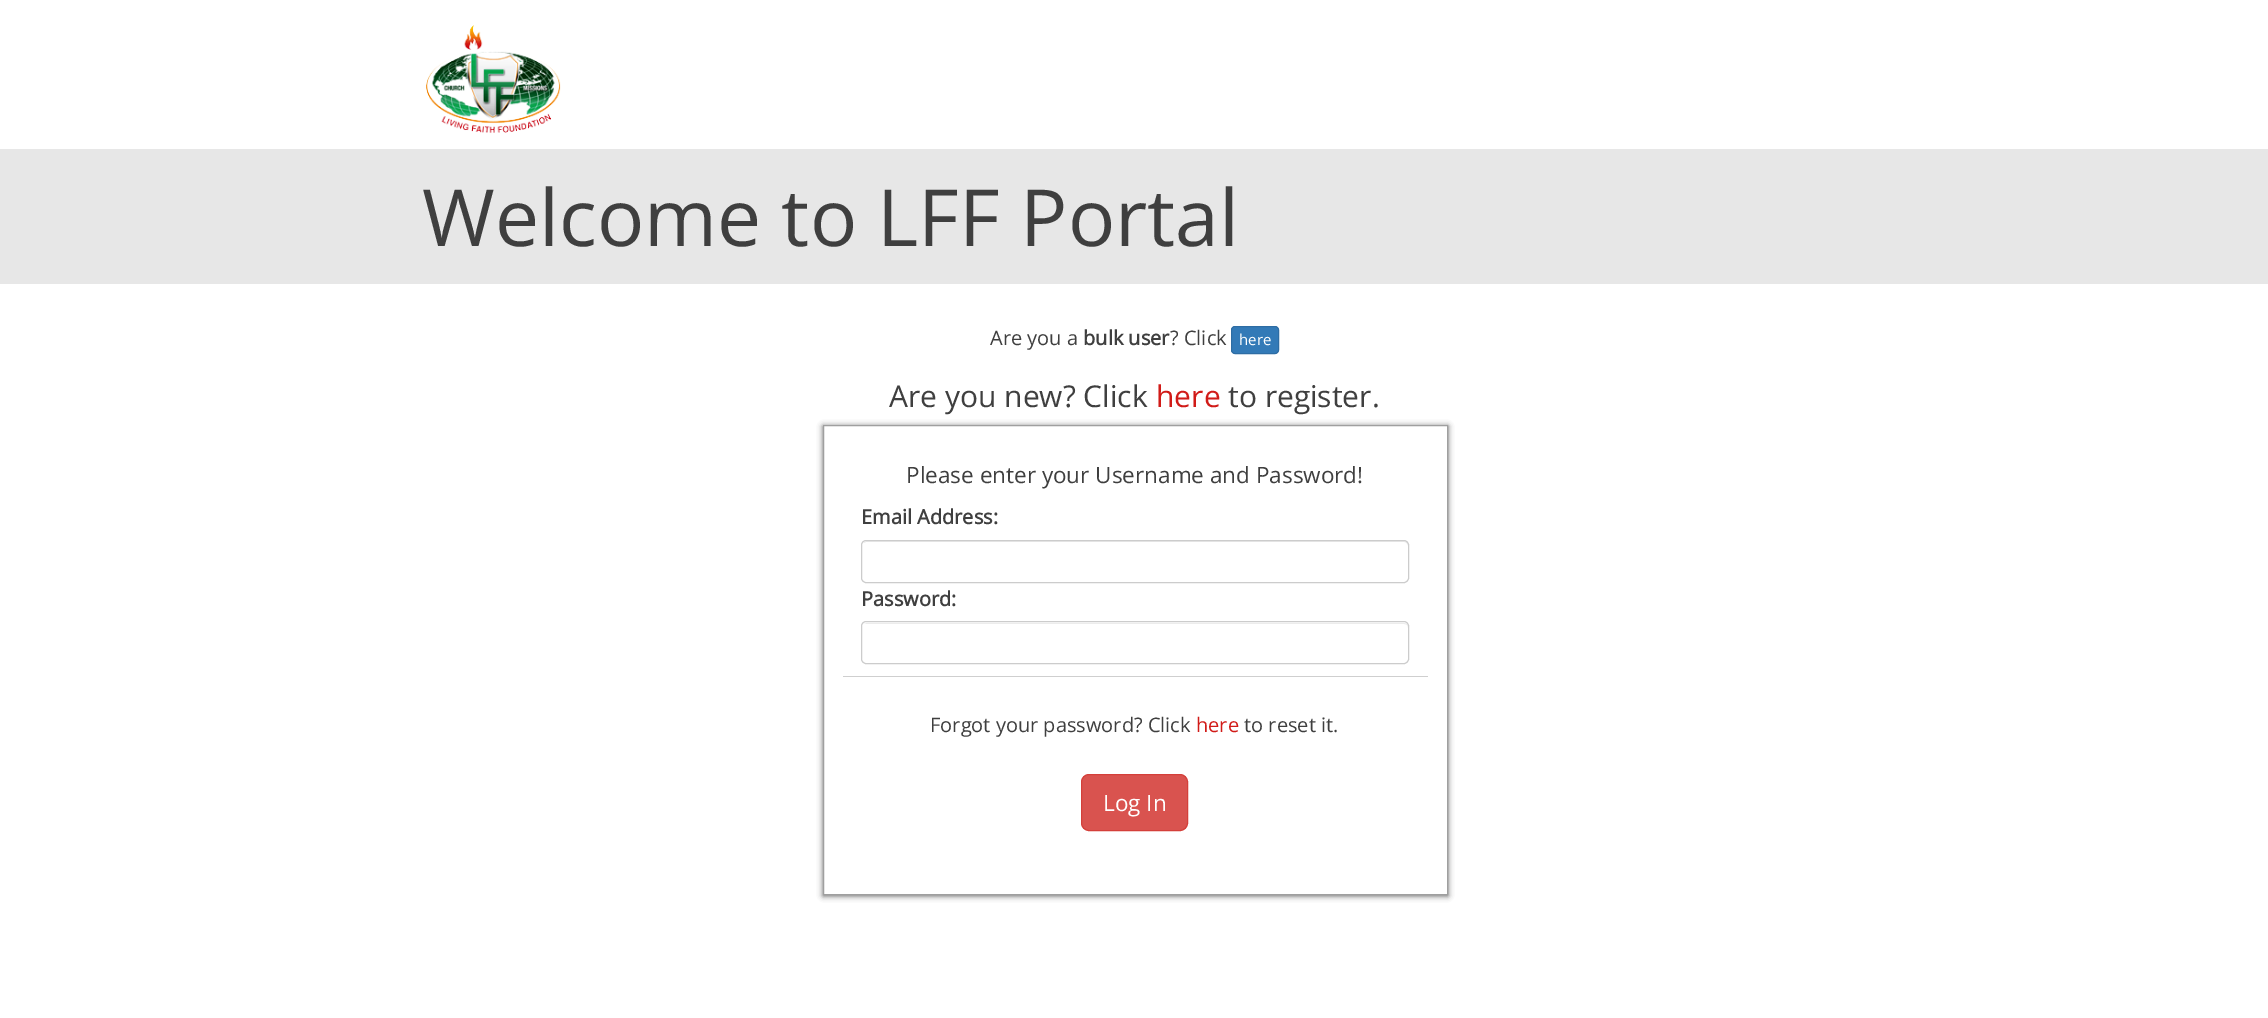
%!PS-Adobe-3.0
%%BoundingBox: 0 0 2268 1018
%%LanguageLevel: 3
%%Pages: 1
%%EndComments
%%BeginProlog
/setalpha { dup .setfillconstantalpha .setstrokeconstantalpha } def
/rrect { 5 dict begin { /r /h /w /y /x } { exch def } forall
  x r add y moveto x w add y 2 copy h add r arct x w add y h add x 1 index r arct
  x y h add x y r arct x y 2 copy exch w add exch r arct closepath end } def
/softshadow { 12 dict begin { /a /b /q /h /w /y /x } { exch def } forall gsave /was 0 def
  9 -2 -9 { dup b mul 4 div /e exch def 1 sub .425 mul 2.718 exch exp 1 add a .99 .min exch div /now exch def
    1 1 now sub 1 was sub div sub setalpha /was now def
    w h .min e 2 mul add 0 gt { x e sub y e sub w e 2 mul add h e 2 mul add
      q e add b .6 mul add w h .min 2 div e add .min 0 .max rrect fill } if } for grestore end } def
/drawimage { 5 dict begin { /h /w /y /x /name } { exch def } forall
  gsave x y translate w h scale
  w h 8 [w 0 0 h 0 0] name (r) file false 3 colorimage grestore end } def
%%EndProlog
%%BeginSetup
<< /PageSize [2268 1018] /PageUsesTransparency true >> setpagedevice
%%EndSetup
%%Page: 1 1
0 .pushpdf14devicefilter
0 1018 translate 1 -1 scale
4 setmiterlimit
1 setgray
0 0 2268 1018 rectfill
(images/1.raw) 426 25 135 108 drawimage
0.906 setgray
0 149 2268 135 rectfill
0.2 0.478 0.718 setrgbcolor
1231.5 326.5 47 27 3.5 rrect gsave fill grestore
0.18 0.427 0.643 setrgbcolor
stroke
0.373 setgray
823 426 625 470 0 3 1 softshadow
1 setgray
newpath 823.5 425.5 moveto 1447.5 425.5 lineto 1447.5 894.5 lineto 823.5 894.5 lineto closepath gsave fill grestore
0.624 setgray
stroke
0.812 setgray
843 676 585 1 rectfill
0.925 setgray
newpath 866 542 moveto 1404 542 lineto 1406 542 1408 544 1408 546 curveto 1408 545 lineto 1408 543 1406 541 1404 541 curveto 867 541 lineto 866 541 864 542 864 543 curveto closepath fill
0.8 setgray
861.5 540.5 547 42 4.5 rrect stroke
0.925 setgray
newpath 866 624 moveto 1404 624 lineto 1406 624 1408 625 1408 628 curveto 1408 627 lineto 1408 625 1406 623 1404 623 curveto 867 623 lineto 866 623 865 624 864 624 curveto closepath fill
0.8 setgray
861.5 621.5 547 42 4.5 rrect stroke
0.851 0.325 0.31 setrgbcolor
1081.5 774.5 106 56 7.5 rrect gsave fill grestore
0.831 0.247 0.227 setrgbcolor
stroke
/OpenSans-Regular [78.75 0 0 -78.75 0 0] selectfont
0.247 setgray
422 246 moveto (Welcome to LFF Portal) show
/OpenSans-Regular [20 0 0 -20 0 0] selectfont
990 345 moveto (Are you a) show
/OpenSans-Bold [20 0 0 -20 0 0] selectfont
1083 345 moveto (bulk user) show
/OpenSans-Regular [20 0 0 -20 0 0] selectfont
1170 345 moveto (? Click) show
/OpenSans-Regular [15 0 0 -15 0 0] selectfont
1 setgray
1239 345 moveto (here) show
/OpenSans-Regular [30 0 0 -30 0 0] selectfont
0.247 setgray
889 407 moveto (Are you new? Click) show
0.82 0.106 0.094 setrgbcolor
1156 407 moveto (here) show
0.247 setgray
1228 407 moveto (to register.) show
/OpenSans-Regular [22.5 0 0 -22.5 0 0] selectfont
906 483 moveto (Please enter your Username and Password!) show
/OpenSans-Bold [20 0 0 -20 0 0] selectfont
861 524 moveto (Email Address:) show
861 606 moveto (Password:) show
/OpenSans-Regular [20 0 0 -20 0 0] selectfont
930 732 moveto (Forgot your password? Click) show
0.82 0.106 0.094 setrgbcolor
1196 732 moveto (here) show
0.247 setgray
1244 732 moveto (to reset it.) show
/OpenSans-Regular [22.5 0 0 -22.5 0 0] selectfont
1 setgray
1103 811 moveto (Log In) show
.poppdf14devicefilter showpage
%%EOF
